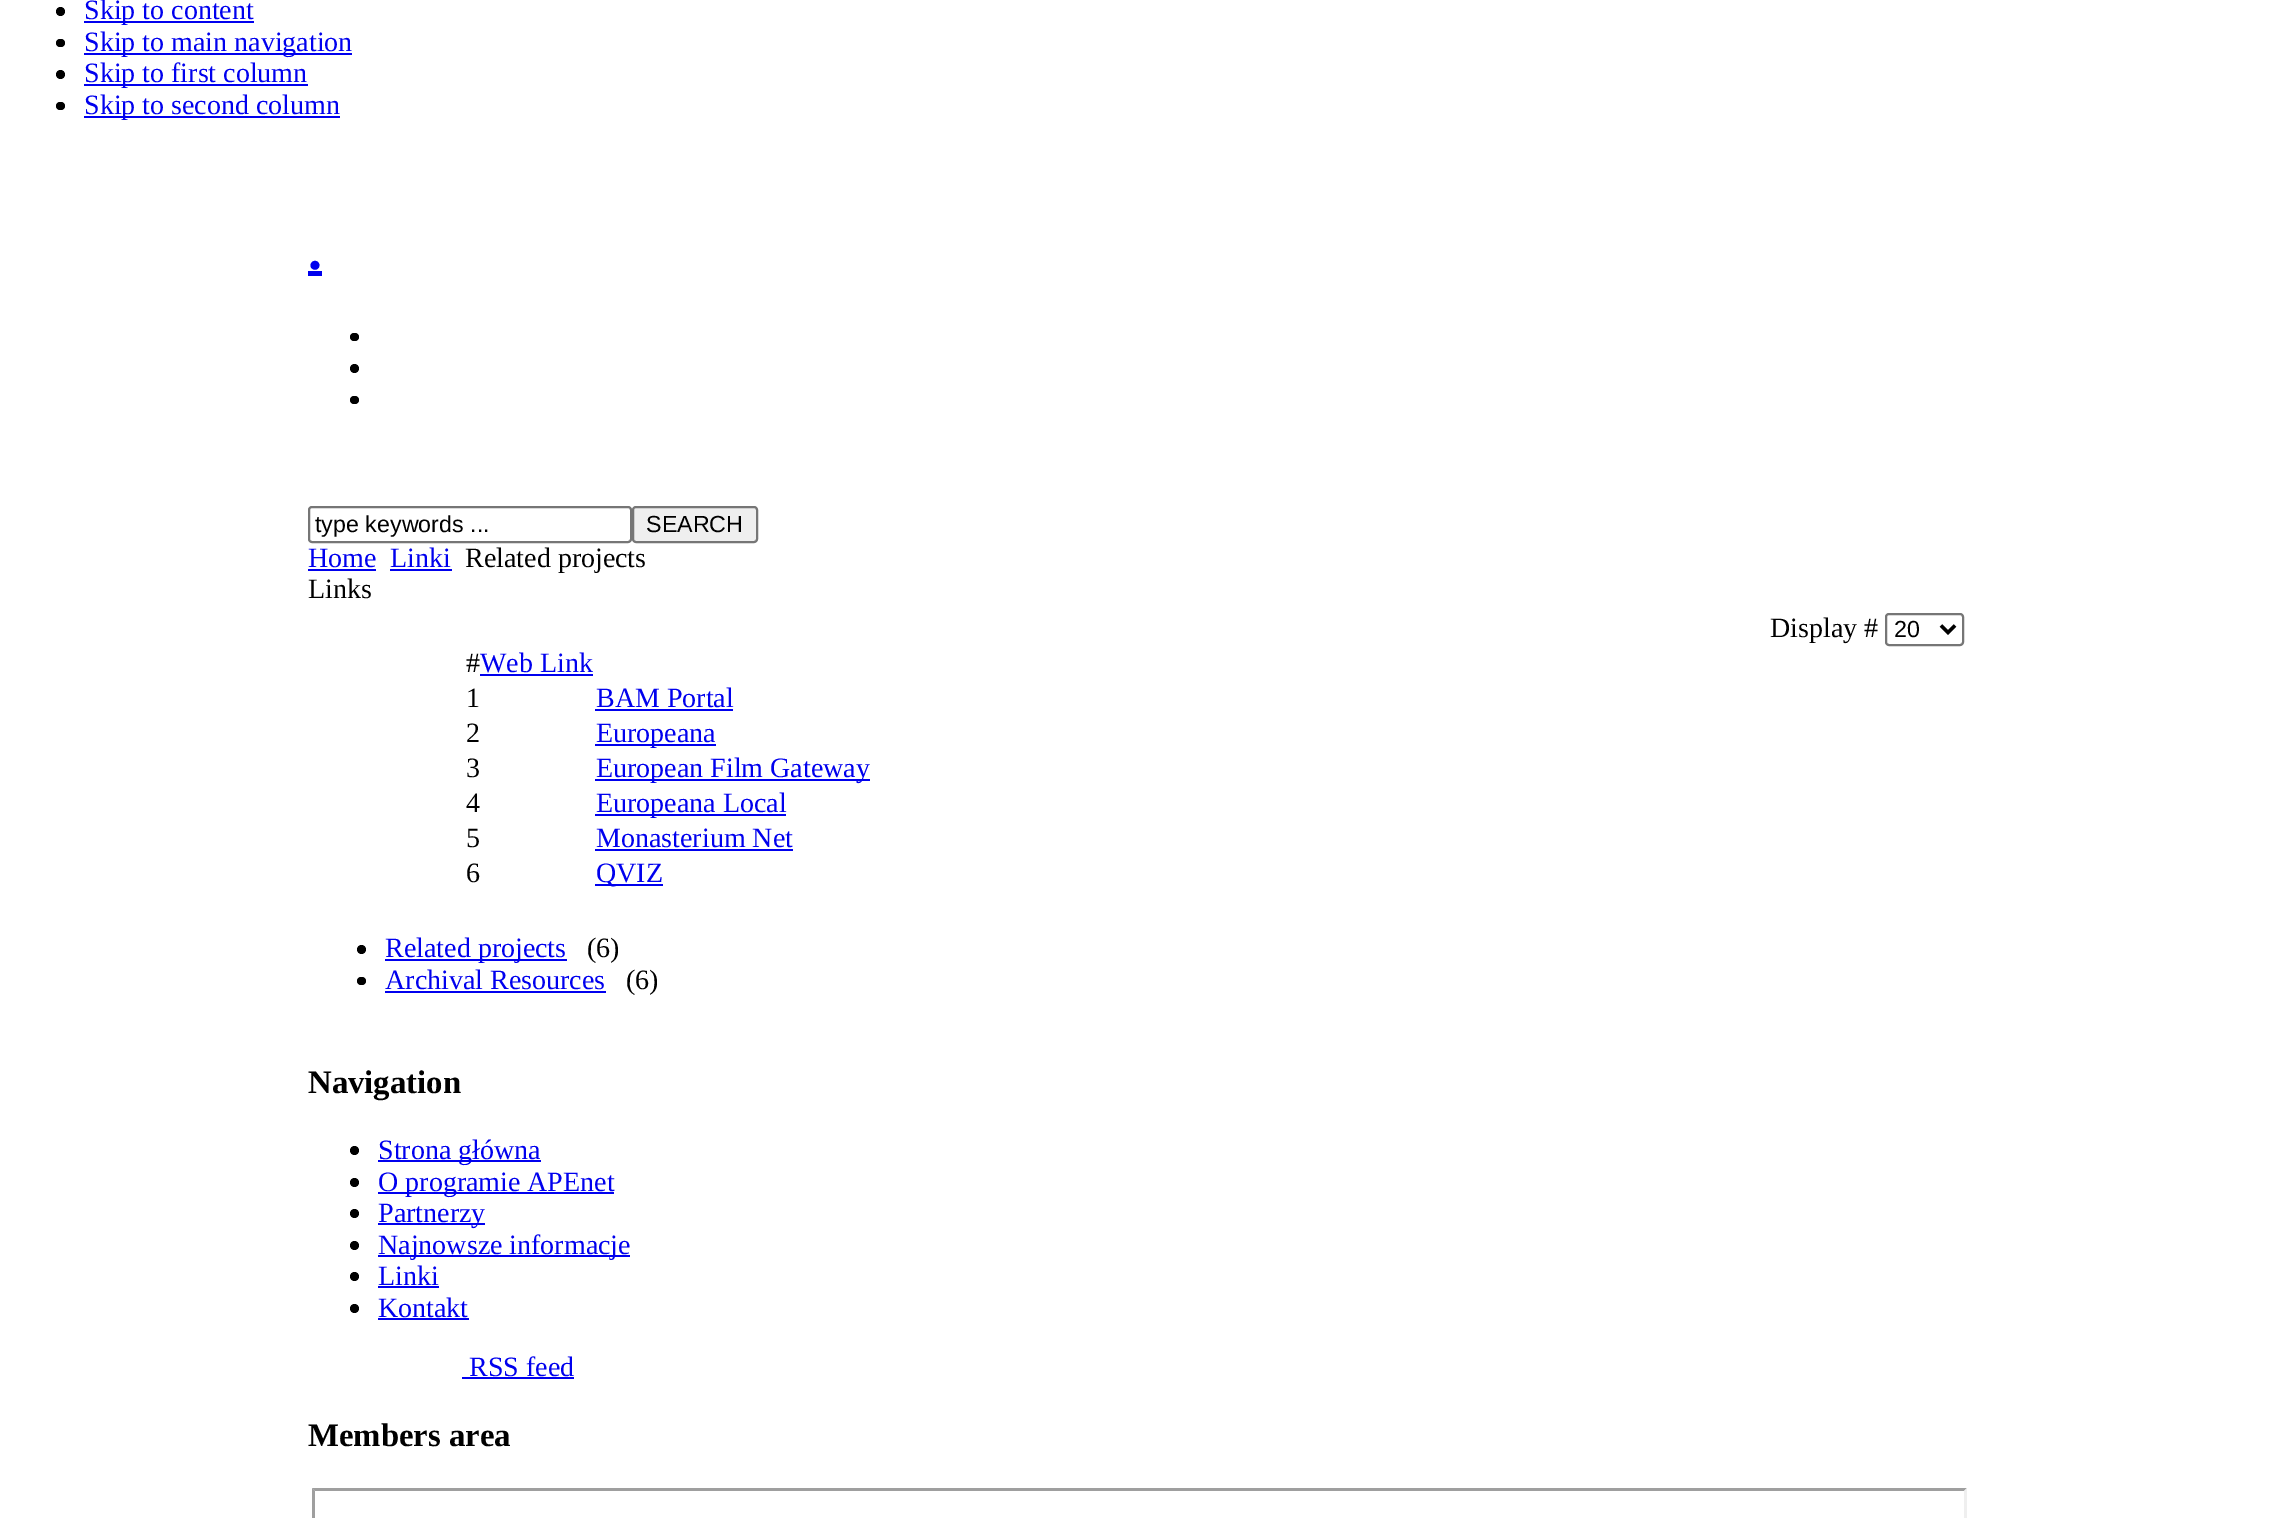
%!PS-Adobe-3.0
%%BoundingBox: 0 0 2277 1518
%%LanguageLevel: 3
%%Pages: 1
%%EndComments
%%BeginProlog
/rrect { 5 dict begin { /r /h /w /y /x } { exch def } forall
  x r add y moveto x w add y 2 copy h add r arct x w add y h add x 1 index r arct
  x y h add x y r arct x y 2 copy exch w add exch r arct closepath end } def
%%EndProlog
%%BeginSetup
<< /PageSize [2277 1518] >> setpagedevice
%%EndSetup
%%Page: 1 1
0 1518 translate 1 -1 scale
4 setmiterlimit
1 setgray
0 0 2277 1518 rectfill
0 setgray
newpath 60.5 11.5 4.5 0 360 arc closepath fill
0 0 0.933 setrgbcolor
84 21 170 2 rectfill
0 setgray
56 39 9 8 4 rrect fill
0 0 0.933 setrgbcolor
84 53 268 2 rectfill
0 setgray
newpath 60.5 74.5 4.5 0 360 arc closepath fill
0 0 0.933 setrgbcolor
84 84 224 2 rectfill
0 setgray
56 102 9 8 4 rrect fill
0 0 0.933 setrgbcolor
84 116 256 2 rectfill
308 271 14 5 rectfill
0 setgray
350 333 9 8 4 rrect fill
newpath 354.5 368.5 4.5 0 360 arc closepath fill
350 396 9 8 4 rrect fill
0.463 setgray
2 setlinewidth
309 507 322 35 3 rrect stroke
0.937 setgray
633 507 124 35 3 rrect gsave fill grestore
0.463 setgray
stroke
0 0 0.933 setrgbcolor
308 569 68 2 rectfill
390 569 62 2 rectfill
0.463 setgray
1886 614 77 31 3 rrect stroke
0 setgray
3.5 setlinewidth
newpath 1941 625.5 moveto 1948 632.5 lineto 1955 625.5 lineto stroke
0 0 0.933 setrgbcolor
480 674 113 2 rectfill
595 709 138 2 rectfill
595 744 121 2 rectfill
595 779 275 2 rectfill
595 814 191 2 rectfill
595 849 198 2 rectfill
595 884 68 2 rectfill
0 setgray
newpath 361.5 949.5 4.5 0 360 arc closepath fill
0 0 0.933 setrgbcolor
385 959 182 2 rectfill
0 setgray
357 977 9 8 4 rrect fill
0 0 0.933 setrgbcolor
385 991 221 2 rectfill
0 setgray
newpath 354.5 1150.5 4.5 0 360 arc closepath fill
0 0 0.933 setrgbcolor
378 1160 163 2 rectfill
0 setgray
newpath 354.5 1182.5 4.5 0 360 arc closepath fill
0 0 0.933 setrgbcolor
378 1192 236 2 rectfill
0 setgray
newpath 354.5 1213.5 4.5 0 360 arc closepath fill
0 0 0.933 setrgbcolor
378 1223 107 2 rectfill
0 setgray
newpath 354.5 1245.5 4.5 0 360 arc closepath fill
0 0 0.933 setrgbcolor
378 1255 252 2 rectfill
0 setgray
newpath 354.5 1276.5 4.5 0 360 arc closepath fill
0 0 0.933 setrgbcolor
378 1286 61 2 rectfill
0 setgray
newpath 354.5 1308.5 4.5 0 360 arc closepath fill
0 0 0.933 setrgbcolor
378 1318 91 2 rectfill
462 1377 112 2 rectfill
0.624 setgray
newpath 312 1488 moveto 1967 1488 lineto 1964 1491 lineto 315 1491 lineto closepath fill
0.937 setgray
newpath 1967 1488 moveto 1967 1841 lineto 1964 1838 lineto 1964 1491 lineto closepath fill
0.624 setgray
newpath 312 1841 moveto 312 1488 lineto 315 1491 lineto 315 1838 lineto closepath fill
/LiberationSerif-Regular [28 0 0 -28 0 0] selectfont
0 0 0.933 setrgbcolor
84 19 moveto (Skip to content) show
84 51 moveto (Skip to main navigation) show
84 82 moveto (Skip to first column) show
84 114 moveto (Skip to second column) show
/LiberationSerif-Bold [56 0 0 -56 0 0] selectfont
308 269 moveto (.) show
/LiberationSans-Regular [23.25 0 0 -23.25 0 0] selectfont
0 setgray
315 532 moveto (type keywords ...) show
646 532 moveto (SEARCH) show
/LiberationSerif-Regular [28 0 0 -28 0 0] selectfont
0 0 0.933 setrgbcolor
308 567 moveto (Home) show
390 567 moveto (Linki) show
0 setgray
465 567 moveto (Related projects) show
308 598 moveto (Links) show
1770 637 moveto (Display #) show
/LiberationSans-Regular [23.25 0 0 -23.25 0 0] selectfont
1894 637 moveto (20) show
/LiberationSerif-Regular [28 0 0 -28 0 0] selectfont
466 672 moveto (#) show
0 0 0.933 setrgbcolor
480 672 moveto (Web Link) show
0 setgray
466 707 moveto (1) show
0 0 0.933 setrgbcolor
596 707 moveto (BAM Portal) show
0 setgray
466 742 moveto (2) show
0 0 0.933 setrgbcolor
596 742 moveto (Europeana) show
0 setgray
466 777 moveto (3) show
0 0 0.933 setrgbcolor
596 777 moveto (European Film Gateway) show
0 setgray
466 812 moveto (4) show
0 0 0.933 setrgbcolor
596 812 moveto (Europeana Local) show
0 setgray
466 847 moveto (5) show
0 0 0.933 setrgbcolor
596 847 moveto (Monasterium Net) show
0 setgray
466 882 moveto (6) show
0 0 0.933 setrgbcolor
596 882 moveto (QVIZ) show
385 957 moveto (Related projects) show
0 setgray
587 957 moveto (\(6\)) show
0 0 0.933 setrgbcolor
385 989 moveto (Archival Resources) show
0 setgray
626 989 moveto (\(6\)) show
/LiberationSerif-Bold [32.75 0 0 -32.75 0 0] selectfont
308 1093 moveto (Navigation) show
/LiberationSerif-Regular [28 0 0 -28 0 0] selectfont
0 0 0.933 setrgbcolor
378 1159 moveto (Strona główna) show
378 1191 moveto (O programie APEnet) show
378 1222 moveto (Partnerzy) show
378 1254 moveto (Najnowsze informacje) show
378 1285 moveto (Linki) show
378 1317 moveto (Kontakt) show
469 1376 moveto (RSS feed) show
/LiberationSerif-Bold [32.75 0 0 -32.75 0 0] selectfont
0 setgray
308 1446 moveto (Members area) show
showpage
%%EOF
